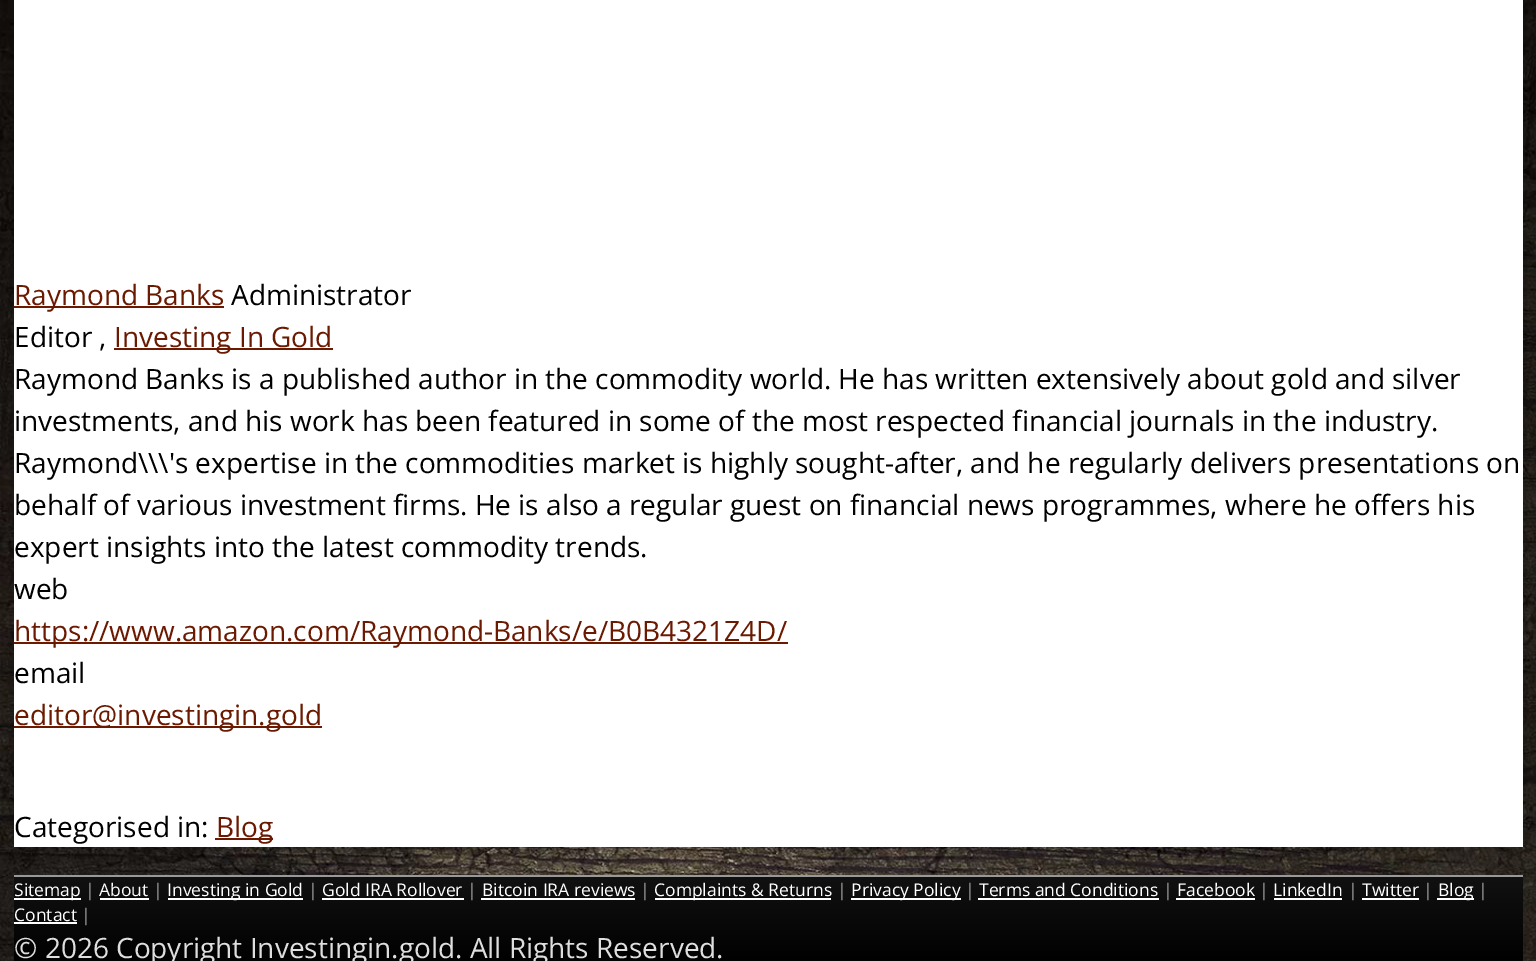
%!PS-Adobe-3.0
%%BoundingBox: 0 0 1536 961
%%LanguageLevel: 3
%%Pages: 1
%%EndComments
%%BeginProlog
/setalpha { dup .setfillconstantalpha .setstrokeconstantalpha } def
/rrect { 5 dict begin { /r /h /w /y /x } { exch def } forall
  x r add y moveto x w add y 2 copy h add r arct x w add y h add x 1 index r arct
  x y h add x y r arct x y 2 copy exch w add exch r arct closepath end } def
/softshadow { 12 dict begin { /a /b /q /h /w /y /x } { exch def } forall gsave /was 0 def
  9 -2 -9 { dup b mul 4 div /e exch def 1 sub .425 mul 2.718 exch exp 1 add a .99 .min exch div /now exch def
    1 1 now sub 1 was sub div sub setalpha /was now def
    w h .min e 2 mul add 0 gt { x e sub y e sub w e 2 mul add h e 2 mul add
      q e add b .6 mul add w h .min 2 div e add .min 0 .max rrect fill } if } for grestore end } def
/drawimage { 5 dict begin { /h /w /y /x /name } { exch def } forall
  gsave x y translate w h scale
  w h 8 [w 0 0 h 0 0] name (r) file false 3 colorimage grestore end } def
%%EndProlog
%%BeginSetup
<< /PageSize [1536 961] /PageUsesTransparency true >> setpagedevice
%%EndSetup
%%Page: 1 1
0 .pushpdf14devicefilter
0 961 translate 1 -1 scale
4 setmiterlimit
1 setgray
0 0 1536 961 rectfill
(images/1.raw) 0 0 1536 961 drawimage
0 setgray
14 -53 1509 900 0 17.5 0.4 softshadow
1 setgray
14 0 1509 847 rectfill
0.42 0.098 0 setrgbcolor
14 306 210 2 rectfill
114 348 219 2 rectfill
14 642 774 2 rectfill
14 726 308 2 rectfill
215 838 58 2 rectfill
gsave newpath 14 877 moveto 1523 877 lineto 1523 961 lineto 14 961 lineto closepath clip newpath
<< /ShadingType 2 /ColorSpace /DeviceRGB /Coords [768 875 768 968] /Extend [true true] /Function << /FunctionType 2 /Domain [0 1] /C0 [0.067 0.067 0.067] /C1 [0 0 0] /N 1 >> >> shfill grestore
0.6 setgray
14 875 1509 2 rectfill
1 setgray
14 898 67 2 rectfill
100 898 49 2 rectfill
168 898 135 2 rectfill
322 898 142 2 rectfill
481 898 154 2 rectfill
655 898 176 2 rectfill
851 898 110 2 rectfill
978 898 181 2 rectfill
1176 898 79 2 rectfill
1274 898 68 2 rectfill
1362 898 57 2 rectfill
1437 898 37 2 rectfill
14 922 63 2 rectfill
/OpenSans-Regular [28 0 0 -28 0 0] selectfont
0.42 0.098 0 setrgbcolor
14 305 moveto (Raymond Banks) show
0 setgray
231 305 moveto (Administrator) show
14 347 moveto (Editor ,) show
0.42 0.098 0 setrgbcolor
114 347 moveto (Investing In Gold) show
0 setgray
14 389 moveto (Raymond Banks is a published author in the commodity world. He has written extensively about gold and silver) show
14 431 moveto (investments, and his work has been featured in some of the most respected financial journals in the industry.) show
14 473 moveto (Raymond\\\\\\'s expertise in the commodities market is highly sought-after, and he regularly delivers presentations on) show
14 515 moveto (behalf of various investment firms. He is also a regular guest on financial news programmes, where he offers his) show
14 557 moveto (expert insights into the latest commodity trends.) show
14 599 moveto (web) show
0.42 0.098 0 setrgbcolor
14 641 moveto (https://www.amazon.com/Raymond-Banks/e/B0B4321Z4D/) show
0 setgray
14 683 moveto (email) show
0.42 0.098 0 setrgbcolor
14 725 moveto (editor@investingin.gold) show
0 setgray
14 837 moveto (Categorised in:) show
0.42 0.098 0 setrgbcolor
216 837 moveto (Blog) show
/OpenSans-Regular [17.5 0 0 -17.5 0 0] selectfont
1 setgray
14 896 moveto (Sitemap) show
0.6 setgray
85 896 moveto (|) show
1 setgray
99 896 moveto (About) show
0.6 setgray
153 896 moveto (|) show
1 setgray
167 896 moveto (Investing in Gold) show
0.6 setgray
308 896 moveto (|) show
1 setgray
322 896 moveto (Gold IRA Rollover) show
0.6 setgray
467 896 moveto (|) show
1 setgray
482 896 moveto (Bitcoin IRA reviews) show
0.6 setgray
640 896 moveto (|) show
1 setgray
654 896 moveto (Complaints & Returns) show
0.6 setgray
837 896 moveto (|) show
1 setgray
851 896 moveto (Privacy Policy) show
0.6 setgray
965 896 moveto (|) show
1 setgray
979 896 moveto (Terms and Conditions) show
0.6 setgray
1163 896 moveto (|) show
1 setgray
1177 896 moveto (Facebook) show
0.6 setgray
1259 896 moveto (|) show
1 setgray
1273 896 moveto (LinkedIn) show
0.6 setgray
1348 896 moveto (|) show
1 setgray
1362 896 moveto (Twitter) show
0.6 setgray
1423 896 moveto (|) show
1 setgray
1438 896 moveto (Blog) show
0.6 setgray
1478 896 moveto (|) show
1 setgray
14 921 moveto (Contact) show
0.6 setgray
81 921 moveto (|) show
/OpenSans-Regular [28 0 0 -28 0 0] selectfont
0.871 setgray
14 958 moveto (© 2026 Copyright Investingin.gold. All Rights Reserved.) show
.poppdf14devicefilter showpage
%%EOF
